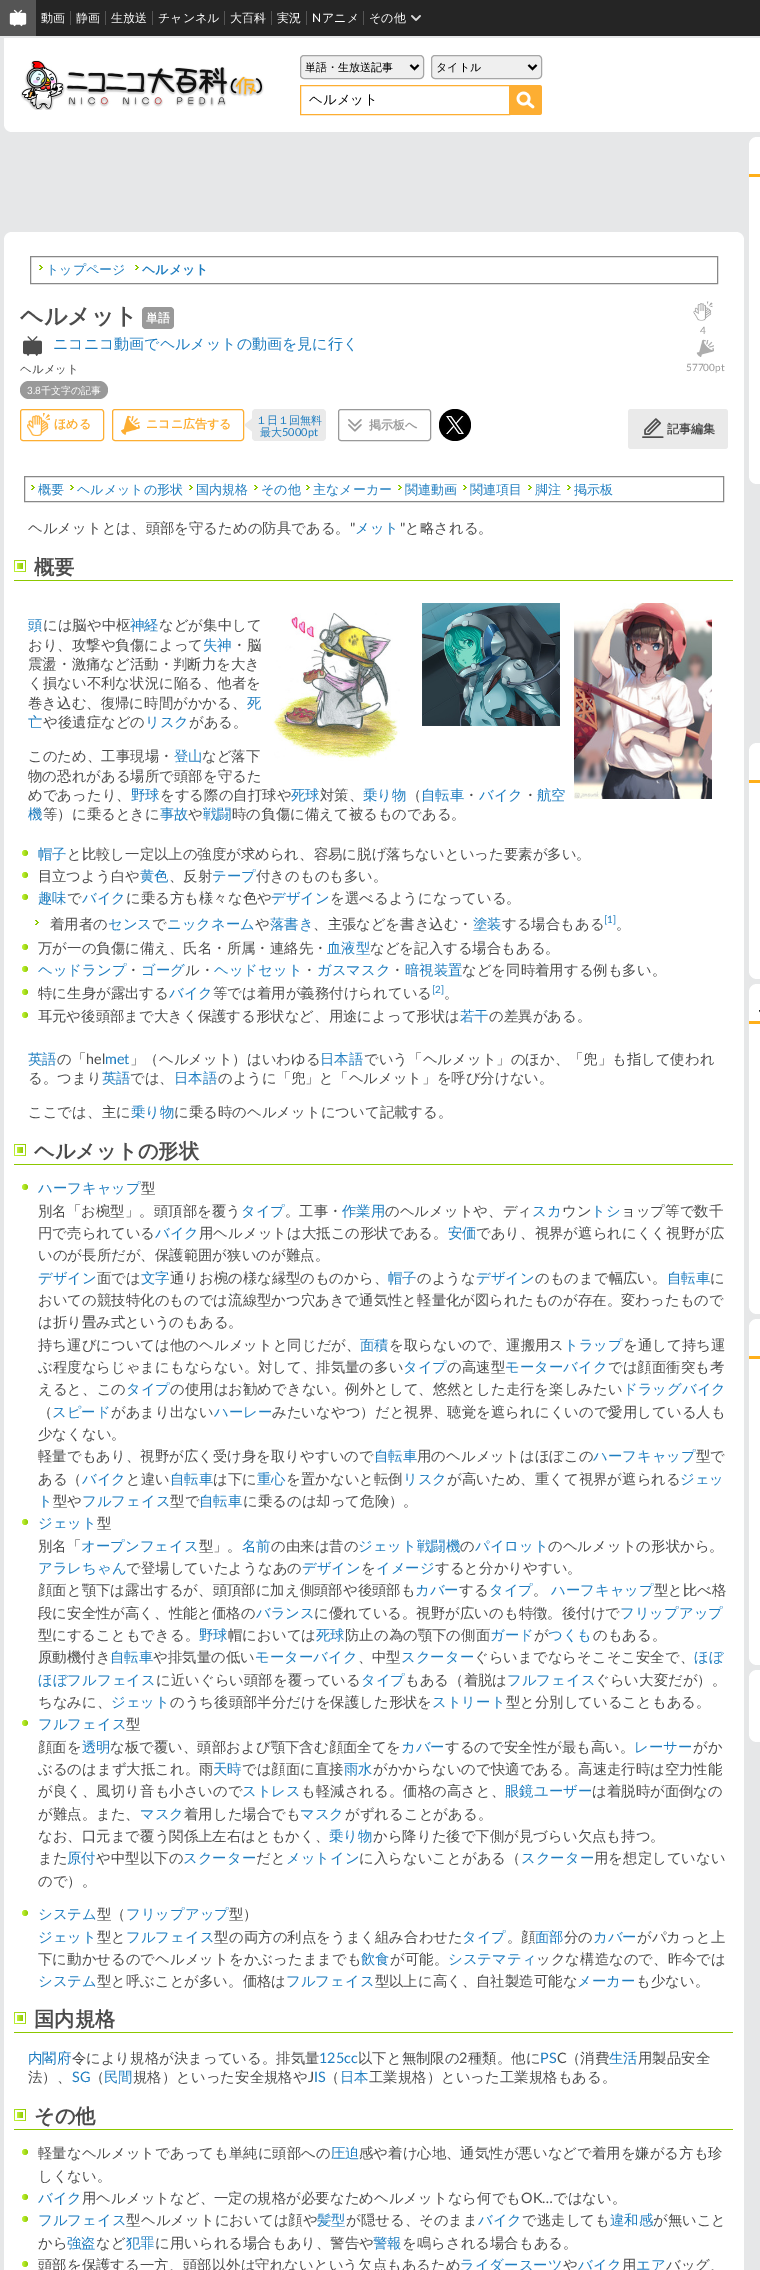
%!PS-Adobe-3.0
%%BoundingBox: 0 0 760 2270
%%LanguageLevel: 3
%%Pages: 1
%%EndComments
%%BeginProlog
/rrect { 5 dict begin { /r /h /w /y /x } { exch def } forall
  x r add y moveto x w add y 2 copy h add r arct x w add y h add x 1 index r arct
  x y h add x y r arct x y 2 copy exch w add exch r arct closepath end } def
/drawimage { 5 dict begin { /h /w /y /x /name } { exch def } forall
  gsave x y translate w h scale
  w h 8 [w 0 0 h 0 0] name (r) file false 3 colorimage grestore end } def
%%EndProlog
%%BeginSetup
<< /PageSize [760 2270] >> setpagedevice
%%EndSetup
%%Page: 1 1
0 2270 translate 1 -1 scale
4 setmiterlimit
0.902 0.906 0.91 setrgbcolor
0 0 760 2270 rectfill
0.145 setgray
36 0 724 36 rectfill
0.333 setgray
0 0 36 36 rectfill
(images/1.raw) 9 9 18 18 drawimage
70 11 1 14 rectfill
105 11 1 14 rectfill
152 11 1 14 rectfill
224 11 1 14 rectfill
271 11 1 14 rectfill
306 11 1 14 rectfill
363 11 1 14 rectfill
(images/2.raw) 411 15 10 6 drawimage
1 setgray
newpath 4 38 moveto 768 38 lineto 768 124 lineto 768 128.5 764.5 132 760 132 curveto 12 132 lineto 7.5 132 4 128.5 4 124 curveto closepath fill
(images/3.raw) 20 60 244 50 drawimage
0.937 setgray
300.5 55.5 123 23 3.5 rrect gsave fill grestore
0.651 setgray
stroke
0 setgray
2 setlinewidth
newpath 410.5 65 moveto 414.5 69 lineto 418.5 65 lineto stroke
0.937 setgray
431.5 55.5 110 23 3.5 rrect gsave fill grestore
0.651 setgray
1 setlinewidth
stroke
0 setgray
2 setlinewidth
newpath 528.5 65 moveto 532.5 69 lineto 536.5 65 lineto stroke
0.992 0.682 0.196 setrgbcolor
1 setlinewidth
300.5 85.5 209 29 rectstroke
(images/4.raw) 510 85 32 30 drawimage
1 setgray
newpath 12 232 moveto 736 232 lineto 740.5 232 744 235.5 744 240 curveto 744 401 lineto 4 401 lineto 4 240 lineto 4 235.5 7.5 232 12 232 curveto closepath fill
0.533 setgray
30.5 256.5 687 27 rectstroke
(images/5.raw) 39 265 4 5 drawimage
(images/5.raw) 135 265 4 5 drawimage
0.6 setgray
142 307 32 22 4 rrect fill
(images/6.raw) 23 336 19 20 drawimage
20 381 88 18 9 rrect fill
(images/7.raw) 693 301 20 20 drawimage
(images/8.raw) 696 339 18 18 drawimage
1 setgray
4 401 740 1869 rectfill
0.992 0.682 0.196 setrgbcolor
20.5 409.5 83 31 2.5 rrect stroke
(images/9.raw) 27 413 23 23 drawimage
112.5 409.5 131 31 2.5 rrect stroke
(images/10.raw) 121 415 19 20 drawimage
0.918 setgray
252 409 74 32 4 rrect fill
newpath 254 417 moveto 254 433 lineto 244 425 lineto closepath fill
0.6 setgray
338.5 409.5 92 31 2.5 rrect stroke
(images/11.raw) 348 419 14 13 drawimage
0 setgray
newpath 455 425 16 0 360 arc closepath fill
(images/12.raw) 446 416 18 18 drawimage
0.918 setgray
628 409 100 40 3 rrect fill
(images/13.raw) 642 418 22 20 drawimage
0.533 setgray
24.5 476.5 699 25 rectstroke
(images/5.raw) 31 485 4 5 drawimage
(images/5.raw) 70 485 4 5 drawimage
(images/5.raw) 189 485 4 5 drawimage
(images/5.raw) 254 485 4 5 drawimage
(images/5.raw) 306 485 4 5 drawimage
(images/5.raw) 398 485 4 5 drawimage
(images/5.raw) 463 485 4 5 drawimage
(images/5.raw) 528 485 4 5 drawimage
(images/5.raw) 567 485 4 5 drawimage
(images/14.raw) 14 560 12 12 drawimage
0.549 0.78 0 setrgbcolor
14 580 719 1 rectfill
(images/15.raw) 273 612 127 149 drawimage
(images/16.raw) 422 603 138 123 drawimage
(images/17.raw) 574 603 138 196 drawimage
(images/18.raw) 22 850 6 6 drawimage
(images/18.raw) 22 872 6 6 drawimage
(images/18.raw) 22 894 6 6 drawimage
(images/5.raw) 35 920 4 5 drawimage
(images/18.raw) 22 944 6 6 drawimage
(images/18.raw) 22 966 6 6 drawimage
(images/18.raw) 22 989 6 6 drawimage
(images/18.raw) 22 1012 6 6 drawimage
(images/14.raw) 14 1144 12 12 drawimage
14 1164 719 1 rectfill
(images/18.raw) 22 1184 6 6 drawimage
(images/18.raw) 22 1519 6 6 drawimage
(images/18.raw) 22 1720 6 6 drawimage
(images/18.raw) 22 1910 6 6 drawimage
(images/14.raw) 14 2012 12 12 drawimage
14 2032 719 1 rectfill
(images/14.raw) 14 2109 12 12 drawimage
14 2129 719 1 rectfill
(images/18.raw) 22 2149 6 6 drawimage
(images/18.raw) 22 2194 6 6 drawimage
(images/18.raw) 22 2216 6 6 drawimage
(images/18.raw) 22 2261 6 6 drawimage
1 setgray
749 137 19 347 8 rrect fill
1 0.686 0.098 setrgbcolor
749 174 11 3 rectfill
1 setgray
749 743 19 236 8 rrect fill
1 0.686 0.098 setrgbcolor
749 780 11 3 rectfill
1 setgray
749 984 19 330 8 rrect fill
1 0.686 0.098 setrgbcolor
749 1021 11 3 rectfill
(images/19.raw) 759 1010 1 3 drawimage
1 setgray
749 1319 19 346 8 rrect fill
1 0.686 0.098 setrgbcolor
749 1356 11 3 rectfill
1 setgray
749 1670 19 72 8 rrect fill
/WenQuanYiZenHei-Medium [12 0 0 -12 0 0] selectfont
41 22 moveto (動画) show
76 22 moveto (静画) show
111 22 moveto (生放送) show
158 22 moveto (チャンネル) show
230 22 moveto (大百科) show
277 22 moveto (実況) show
/Lato-Regular [12 0 0 -12 0 0] selectfont
312 22 moveto (N) show
/WenQuanYiZenHei-Medium [12 0 0 -12 0 0] selectfont
322 22 moveto (アニメ) show
369 22 moveto (その他) show
/WenQuanYiZenHei-Medium [11 0 0 -11 0 0] selectfont
0 setgray
305 71 moveto (単語・生放送記事) show
436 71 moveto (タイトル) show
/WenQuanYiZenHei-Medium [13.5 0 0 -13.5 0 0] selectfont
309 104 moveto (ヘルメット) show
/WenQuanYiZenHei-Medium [13 0 0 -13 0 0] selectfont
0.118 0.49 0.753 setrgbcolor
46 274 moveto (トップページ) show
/WenQuanYiZenHei-Bold [13 0 0 -13 0 0] selectfont
142 274 moveto (ヘルメット) show
/WenQuanYiZenHei-Bold [23 0 0 -23 0 0] selectfont
0.298 setgray
20 324 moveto (ヘルメット) show
/WenQuanYiZenHei-Bold [12 0 0 -12 0 0] selectfont
1 setgray
146 322 moveto (単語) show
/WenQuanYiZenHei-Medium [15 0 0 -15 0 0] selectfont
0.118 0.49 0.753 setrgbcolor
53 349 moveto (ニコニコ動画でヘルメットの動画を見に行く) show
/WenQuanYiZenHei-Medium [11.5 0 0 -11.5 0 0] selectfont
0.298 setgray
20 373 moveto (ヘルメット) show
/Lato-Regular [10 0 0 -10 0 0] selectfont
1 setgray
27 394 moveto (3.8) show
/WenQuanYiZenHei-Medium [10 0 0 -10 0 0] selectfont
41 394 moveto (千文字の記事) show
/Lato-Regular [10 0 0 -10 0 0] selectfont
0.6 setgray
700 334 moveto (4) show
686 371 moveto (57700pt) show
/WenQuanYiZenHei-Bold [12 0 0 -12 0 0] selectfont
0.992 0.682 0.196 setrgbcolor
54 428 moveto (ほめる) show
146 428 moveto (ニコニ広告する) show
/WenQuanYiZenHei-Medium [11 0 0 -11 0 0] selectfont
0.118 0.49 0.753 setrgbcolor
256 424 moveto (１日１回無料) show
260 436 moveto (最大) show
/Lato-Regular [11 0 0 -11 0 0] selectfont
282 436 moveto (5000pt) show
/WenQuanYiZenHei-Bold [12 0 0 -12 0 0] selectfont
0.6 setgray
369 429 moveto (掲示板へ) show
0.298 setgray
667 433 moveto (記事編集) show
/WenQuanYiZenHei-Medium [13 0 0 -13 0 0] selectfont
0.118 0.49 0.753 setrgbcolor
38 494 moveto (概要) show
77 494 moveto (ヘルメットの形状) show
196 494 moveto (国内規格) show
261 494 moveto (その他) show
313 494 moveto (主なメーカー) show
405 494 moveto (関連動画) show
470 494 moveto (関連項目) show
535 494 moveto (脚注) show
574 494 moveto (掲示板) show
/WenQuanYiZenHei-Medium [14.4 0 0 -14.4 0 0] selectfont
0.298 setgray
28 533 moveto (ヘルメットとは、頭部を守るための防具である。) show
/Lato-Regular [14.4 0 0 -14.4 0 0] selectfont
350 533 moveto (") show
/WenQuanYiZenHei-Medium [14.4 0 0 -14.4 0 0] selectfont
0.118 0.49 0.753 setrgbcolor
355 533 moveto (メット) show
/Lato-Regular [14.4 0 0 -14.4 0 0] selectfont
0.298 setgray
400 533 moveto (") show
/WenQuanYiZenHei-Medium [14.4 0 0 -14.4 0 0] selectfont
405 533 moveto (と略される。) show
/WenQuanYiZenHei-Bold [20.25 0 0 -20.25 0 0] selectfont
34 574 moveto (概要) show
/WenQuanYiZenHei-Medium [14.4 0 0 -14.4 0 0] selectfont
0.118 0.49 0.753 setrgbcolor
28 630 moveto (頭) show
0.298 setgray
43 630 moveto (には) show
0.267 setgray
72 630 moveto (脳) show
0.298 setgray
87 630 moveto (や中枢) show
0.118 0.49 0.753 setrgbcolor
130 630 moveto (神経) show
0.298 setgray
159 630 moveto (などが集中して) show
28 650 moveto (おり、攻撃や負傷によって) show
0.118 0.49 0.753 setrgbcolor
203 650 moveto (失神) show
0.298 setgray
232 650 moveto (・) show
0.267 setgray
247 650 moveto (脳) show
0.298 setgray
28 669 moveto (震盪・) show
0.267 setgray
72 669 moveto (激) show
0.298 setgray
86 669 moveto (痛など活動・判断力を大き) show
28 688 moveto (く損ない不利な状況に陥る、他者を) show
28 708 moveto (巻き込む、復帰に時間がかかる、) show
0.118 0.49 0.753 setrgbcolor
247 708 moveto (死) show
28 727 moveto (亡) show
0.298 setgray
43 727 moveto (や後遺症などの) show
0.118 0.49 0.753 setrgbcolor
145 727 moveto (リスク) show
0.298 setgray
189 727 moveto (がある。) show
28 761 moveto (このため、工事現場・) show
0.118 0.49 0.753 setrgbcolor
174 761 moveto (登山) show
0.298 setgray
202 761 moveto (など落下) show
28 781 moveto (物の恐れがある場所で頭部を守るた) show
28 800 moveto (めであったり、) show
0.118 0.49 0.753 setrgbcolor
131 800 moveto (野球) show
0.298 setgray
160 800 moveto (をする際の自打球や) show
0.118 0.49 0.753 setrgbcolor
291 800 moveto (死球) show
0.298 setgray
320 800 moveto (対策、) show
0.118 0.49 0.753 setrgbcolor
363 800 moveto (乗り物) show
0.298 setgray
407 800 moveto (（) show
0.118 0.49 0.753 setrgbcolor
421 800 moveto (自転車) show
0.298 setgray
464 800 moveto (・) show
0.118 0.49 0.753 setrgbcolor
479 800 moveto (バイク) show
0.298 setgray
523 800 moveto (・) show
0.118 0.49 0.753 setrgbcolor
537 800 moveto (航空) show
28 819 moveto (機) show
0.298 setgray
43 819 moveto (等）に乗るときに) show
0.118 0.49 0.753 setrgbcolor
160 819 moveto (事故) show
0.298 setgray
188 819 moveto (や) show
0.118 0.49 0.753 setrgbcolor
203 819 moveto (戦闘) show
0.298 setgray
232 819 moveto (時の負傷に備えて被るものである。) show
0.118 0.49 0.753 setrgbcolor
38 859 moveto (帽子) show
0.298 setgray
67 859 moveto (と) show
0.267 setgray
82 859 moveto (比) show
0.298 setgray
96 859 moveto (較し一定以上の強度が) show
0.267 setgray
241 859 moveto (求) show
0.298 setgray
255 859 moveto (められ、容易に脱げ落ちないといった要素が多い。) show
0.267 setgray
38 881 moveto (目) show
0.298 setgray
52 881 moveto (立つよう) show
0.267 setgray
111 881 moveto (白) show
0.298 setgray
125 881 moveto (や) show
0.118 0.49 0.753 setrgbcolor
140 881 moveto (黄色) show
0.298 setgray
169 881 moveto (、反射) show
0.118 0.49 0.753 setrgbcolor
212 881 moveto (テープ) show
0.298 setgray
256 881 moveto (付きのものも多い。) show
0.118 0.49 0.753 setrgbcolor
38 903 moveto (趣味) show
0.298 setgray
67 903 moveto (で) show
0.118 0.49 0.753 setrgbcolor
82 903 moveto (バイク) show
0.298 setgray
126 903 moveto (に乗る方も様々な色や) show
0.118 0.49 0.753 setrgbcolor
271 903 moveto (デザイン) show
0.298 setgray
330 903 moveto (を選べるようになっている。) show
50 929 moveto (着用者の) show
0.118 0.49 0.753 setrgbcolor
108 929 moveto (センス) show
0.298 setgray
152 929 moveto (で) show
0.118 0.49 0.753 setrgbcolor
167 929 moveto (ニックネーム) show
0.298 setgray
255 929 moveto (や) show
0.118 0.49 0.753 setrgbcolor
270 929 moveto (落書き) show
0.298 setgray
313 929 moveto (、) show
0.267 setgray
328 929 moveto (主張) show
0.298 setgray
356 929 moveto (などを書き込む・) show
0.118 0.49 0.753 setrgbcolor
473 929 moveto (塗装) show
0.298 setgray
502 929 moveto (する場合もある) show
/Lato-Regular [10 0 0 -10 0 0] selectfont
0.118 0.49 0.753 setrgbcolor
604 923 moveto ([1]) show
/WenQuanYiZenHei-Medium [14.4 0 0 -14.4 0 0] selectfont
0.298 setgray
616 929 moveto (。) show
38 953 moveto (万が一の負傷に備え、氏名・所属・連絡先・) show
0.118 0.49 0.753 setrgbcolor
327 953 moveto (血液型) show
0.298 setgray
370 953 moveto (などを記入する場合もある。) show
0.118 0.49 0.753 setrgbcolor
38 975 moveto (ヘッドランプ) show
0.298 setgray
126 975 moveto (・) show
0.118 0.49 0.753 setrgbcolor
141 975 moveto (ゴーグ) show
0.298 setgray
185 975 moveto (ル・) show
0.118 0.49 0.753 setrgbcolor
214 975 moveto (ヘッドセット) show
0.298 setgray
302 975 moveto (・) show
0.118 0.49 0.753 setrgbcolor
317 975 moveto (ガスマスク) show
0.298 setgray
390 975 moveto (・) show
0.118 0.49 0.753 setrgbcolor
405 975 moveto (暗視装置) show
0.298 setgray
462 975 moveto (などを同時着用する例も多い。) show
38 998 moveto (特に生身が露出する) show
0.118 0.49 0.753 setrgbcolor
169 998 moveto (バイク) show
0.298 setgray
213 998 moveto (等では着用が義務付けられている) show
/Lato-Regular [10 0 0 -10 0 0] selectfont
0.118 0.49 0.753 setrgbcolor
432 993 moveto ([2]) show
/WenQuanYiZenHei-Medium [14.4 0 0 -14.4 0 0] selectfont
0.298 setgray
444 998 moveto (。) show
0.267 setgray
38 1021 moveto (耳) show
0.298 setgray
52 1021 moveto (元や後頭部まで大きく保護する形状など、用途によって形状は) show
0.118 0.49 0.753 setrgbcolor
460 1021 moveto (若干) show
0.298 setgray
489 1021 moveto (の差異がある。) show
0.118 0.49 0.753 setrgbcolor
28 1064 moveto (英語) show
0.298 setgray
57 1064 moveto (の「) show
/Lato-Regular [14.4 0 0 -14.4 0 0] selectfont
86 1064 moveto (hel) show
0.118 0.49 0.753 setrgbcolor
105 1064 moveto (met) show
/WenQuanYiZenHei-Medium [14.4 0 0 -14.4 0 0] selectfont
0.298 setgray
130 1064 moveto (」（ヘルメット）はいわゆる) show
0.118 0.49 0.753 setrgbcolor
320 1064 moveto (日本語) show
0.298 setgray
364 1064 moveto (でいう「ヘルメット」のほか、「) show
0.267 setgray
583 1064 moveto (兜) show
0.298 setgray
598 1064 moveto (」も) show
0.267 setgray
627 1064 moveto (指) show
0.298 setgray
641 1064 moveto (して使われ) show
28 1083 moveto (る。つまり) show
0.118 0.49 0.753 setrgbcolor
102 1083 moveto (英語) show
0.298 setgray
130 1083 moveto (では、) show
0.118 0.49 0.753 setrgbcolor
174 1083 moveto (日本語) show
0.298 setgray
218 1083 moveto (のように「) show
0.267 setgray
291 1083 moveto (兜) show
0.298 setgray
305 1083 moveto (」と「ヘルメット」を呼び分けない。) show
28 1117 moveto (ここでは、) show
0.267 setgray
102 1117 moveto (主) show
0.298 setgray
116 1117 moveto (に) show
0.118 0.49 0.753 setrgbcolor
131 1117 moveto (乗り物) show
0.298 setgray
174 1117 moveto (に乗る時のヘルメットについて記載する。) show
/WenQuanYiZenHei-Bold [20.25 0 0 -20.25 0 0] selectfont
34 1158 moveto (ヘルメットの形状) show
/WenQuanYiZenHei-Medium [14.4 0 0 -14.4 0 0] selectfont
0.118 0.49 0.753 setrgbcolor
38 1193 moveto (ハーフキャップ) show
0.267 setgray
141 1193 moveto (型) show
0.298 setgray
38 1216 moveto (別名「お椀) show
0.267 setgray
110 1216 moveto (型) show
0.298 setgray
125 1216 moveto (」。頭頂部を覆う) show
0.118 0.49 0.753 setrgbcolor
241 1216 moveto (タイプ) show
0.298 setgray
285 1216 moveto (。工事・) show
0.118 0.49 0.753 setrgbcolor
342 1216 moveto (作業用) show
0.298 setgray
385 1216 moveto (のヘルメットや、ディ) show
0.118 0.49 0.753 setrgbcolor
532 1216 moveto (スカ) show
0.298 setgray
562 1216 moveto (ウン) show
0.118 0.49 0.753 setrgbcolor
591 1216 moveto (トシ) show
0.298 setgray
621 1216 moveto (ョップ等で数千) show
38 1238 moveto (円で売られている) show
0.118 0.49 0.753 setrgbcolor
155 1238 moveto (バイク) show
0.298 setgray
199 1238 moveto (用ヘルメットは大抵この形状である。) show
0.118 0.49 0.753 setrgbcolor
448 1238 moveto (安価) show
0.298 setgray
476 1238 moveto (であり、視界が遮られにくく視野が広) show
38 1260 moveto (いのが長所だが、保護範囲が狭いのが難点。) show
0.118 0.49 0.753 setrgbcolor
38 1283 moveto (デザイン) show
0.298 setgray
97 1283 moveto (面では) show
0.118 0.49 0.753 setrgbcolor
141 1283 moveto (文字) show
0.298 setgray
170 1283 moveto (通りお椀の様な縁) show
0.267 setgray
286 1283 moveto (型) show
0.298 setgray
300 1283 moveto (のものから、) show
0.118 0.49 0.753 setrgbcolor
388 1283 moveto (帽子) show
0.298 setgray
417 1283 moveto (のような) show
0.118 0.49 0.753 setrgbcolor
476 1283 moveto (デザイン) show
0.298 setgray
535 1283 moveto (のものまで幅広い。) show
0.118 0.49 0.753 setrgbcolor
667 1283 moveto (自転車) show
0.298 setgray
710 1283 moveto (に) show
38 1305 moveto (おいての競技特化のものでは流線) show
0.267 setgray
257 1305 moveto (型) show
0.298 setgray
271 1305 moveto (かつ) show
0.267 setgray
301 1305 moveto (穴) show
0.298 setgray
315 1305 moveto (あきで通気性と軽量化が図られたものが存在。変わったもので) show
38 1327 moveto (は折り) show
0.267 setgray
82 1327 moveto (畳) show
0.298 setgray
96 1327 moveto (み式というのもある。) show
38 1350 moveto (持ち運びについては他のヘルメットと同じだが、) show
0.118 0.49 0.753 setrgbcolor
360 1350 moveto (面積) show
0.298 setgray
389 1350 moveto (を取らないので、運搬用ス) show
0.118 0.49 0.753 setrgbcolor
564 1350 moveto (トラップ) show
0.298 setgray
623 1350 moveto (を通して持ち運) show
38 1372 moveto (ぶ程度ならじゃまにもならない。対して、排気量の多い) show
0.118 0.49 0.753 setrgbcolor
403 1372 moveto (タイプ) show
0.298 setgray
447 1372 moveto (の高速) show
0.267 setgray
491 1372 moveto (型) show
0.118 0.49 0.753 setrgbcolor
505 1372 moveto (モーターバイク) show
0.298 setgray
608 1372 moveto (では顔面衝突も考) show
38 1394 moveto (えると、この) show
0.118 0.49 0.753 setrgbcolor
126 1394 moveto (タイプ) show
0.298 setgray
170 1394 moveto (の使用はお勧めできない。例外として、) show
0.267 setgray
433 1394 moveto (悠) show
0.298 setgray
447 1394 moveto (然とした走行を楽しみたい) show
0.118 0.49 0.753 setrgbcolor
623 1394 moveto (ドラッグバイク) show
0.298 setgray
38 1417 moveto (（) show
0.118 0.49 0.753 setrgbcolor
52 1417 moveto (スピード) show
0.298 setgray
111 1417 moveto (があまり出ない) show
0.118 0.49 0.753 setrgbcolor
214 1417 moveto (ハーレー) show
0.298 setgray
272 1417 moveto (みたいなやつ）だと視界、聴覚を遮られにくいので) show
0.267 setgray
608 1417 moveto (愛) show
0.298 setgray
623 1417 moveto (用している人も) show
38 1439 moveto (少なくない。) show
38 1461 moveto (軽量でもあり、視野が広く受け身を取りやすいので) show
0.118 0.49 0.753 setrgbcolor
374 1461 moveto (自転車) show
0.298 setgray
417 1461 moveto (用のヘルメットはほぼこの) show
0.118 0.49 0.753 setrgbcolor
593 1461 moveto (ハーフキャップ) show
0.267 setgray
696 1461 moveto (型) show
0.298 setgray
710 1461 moveto (で) show
38 1484 moveto (ある（) show
0.118 0.49 0.753 setrgbcolor
82 1484 moveto (バイク) show
0.298 setgray
126 1484 moveto (と違い) show
0.118 0.49 0.753 setrgbcolor
170 1484 moveto (自転車) show
0.298 setgray
213 1484 moveto (は下に) show
0.118 0.49 0.753 setrgbcolor
257 1484 moveto (重心) show
0.298 setgray
286 1484 moveto (を置かないと転倒) show
0.118 0.49 0.753 setrgbcolor
403 1484 moveto (リスク) show
0.298 setgray
447 1484 moveto (が高いため、重くて視界が遮られる) show
0.118 0.49 0.753 setrgbcolor
680 1484 moveto (ジェッ) show
38 1506 moveto (ト) show
0.267 setgray
53 1506 moveto (型) show
0.298 setgray
67 1506 moveto (や) show
0.118 0.49 0.753 setrgbcolor
82 1506 moveto (フルフェイス) show
0.267 setgray
170 1506 moveto (型) show
0.298 setgray
185 1506 moveto (で) show
0.118 0.49 0.753 setrgbcolor
199 1506 moveto (自転車) show
0.298 setgray
243 1506 moveto (に乗るのは却って危険）。) show
0.118 0.49 0.753 setrgbcolor
38 1528 moveto (ジェット) show
0.267 setgray
97 1528 moveto (型) show
0.298 setgray
38 1551 moveto (別名「) show
0.118 0.49 0.753 setrgbcolor
81 1551 moveto (オープンフェイス) show
0.267 setgray
199 1551 moveto (型) show
0.298 setgray
213 1551 moveto (」。) show
0.118 0.49 0.753 setrgbcolor
242 1551 moveto (名前) show
0.298 setgray
271 1551 moveto (の由来は昔の) show
0.118 0.49 0.753 setrgbcolor
358 1551 moveto (ジェット戦闘機) show
0.298 setgray
460 1551 moveto (の) show
0.118 0.49 0.753 setrgbcolor
475 1551 moveto (パイロット) show
0.298 setgray
548 1551 moveto (のヘルメットの形状から。) show
0.118 0.49 0.753 setrgbcolor
38 1573 moveto (アラレちゃん) show
0.298 setgray
126 1573 moveto (で登場していたようなあの) show
0.118 0.49 0.753 setrgbcolor
302 1573 moveto (デザイン) show
0.298 setgray
361 1573 moveto (を) show
0.118 0.49 0.753 setrgbcolor
376 1573 moveto (イメージ) show
0.298 setgray
435 1573 moveto (すると分かりやすい。) show
38 1595 moveto (顔面と) show
0.267 setgray
82 1595 moveto (顎) show
0.298 setgray
96 1595 moveto (下は露出するが、頭頂部に加え側頭部や後頭部も) show
0.118 0.49 0.753 setrgbcolor
415 1595 moveto (カバー) show
0.298 setgray
459 1595 moveto (する) show
0.118 0.49 0.753 setrgbcolor
489 1595 moveto (タイプ) show
0.298 setgray
533 1595 moveto (。) show
0.118 0.49 0.753 setrgbcolor
551 1595 moveto (ハーフキャップ) show
0.267 setgray
654 1595 moveto (型) show
0.298 setgray
668 1595 moveto (と) show
0.267 setgray
683 1595 moveto (比) show
0.298 setgray
697 1595 moveto (べ格) show
38 1618 moveto (段に安全性が高く、性) show
0.267 setgray
183 1618 moveto (能) show
0.298 setgray
197 1618 moveto (と価格の) show
0.118 0.49 0.753 setrgbcolor
256 1618 moveto (バランス) show
0.298 setgray
314 1618 moveto (に優れている。視野が広いのも特徴。後付けで) show
0.118 0.49 0.753 setrgbcolor
620 1618 moveto (フリップアップ) show
0.267 setgray
38 1640 moveto (型) show
0.298 setgray
52 1640 moveto (にすることもできる。) show
0.118 0.49 0.753 setrgbcolor
199 1640 moveto (野球) show
0.298 setgray
228 1640 moveto (帽においては) show
0.118 0.49 0.753 setrgbcolor
316 1640 moveto (死球) show
0.298 setgray
345 1640 moveto (防止の為の) show
0.267 setgray
418 1640 moveto (顎) show
0.298 setgray
432 1640 moveto (下の側面) show
0.118 0.49 0.753 setrgbcolor
490 1640 moveto (ガード) show
0.298 setgray
534 1640 moveto (が) show
0.118 0.49 0.753 setrgbcolor
548 1640 moveto (つくも) show
0.298 setgray
593 1640 moveto (のもある。) show
38 1662 moveto (原動機付き) show
0.118 0.49 0.753 setrgbcolor
110 1662 moveto (自転車) show
0.298 setgray
153 1662 moveto (や排気量の低い) show
0.118 0.49 0.753 setrgbcolor
255 1662 moveto (モーターバイク) show
0.298 setgray
358 1662 moveto (、中) show
0.267 setgray
386 1662 moveto (型) show
0.118 0.49 0.753 setrgbcolor
401 1662 moveto (スクーター) show
0.298 setgray
474 1662 moveto (ぐらいまでならそこそこ安全で、) show
0.118 0.49 0.753 setrgbcolor
694 1662 moveto (ほぼ) show
38 1685 moveto (ほぼフルフェイス) show
0.298 setgray
156 1685 moveto (に近いぐらい頭部を覆っている) show
0.118 0.49 0.753 setrgbcolor
361 1685 moveto (タイプ) show
0.298 setgray
405 1685 moveto (もある（着脱は) show
0.118 0.49 0.753 setrgbcolor
507 1685 moveto (フルフェイス) show
0.298 setgray
595 1685 moveto (ぐらい大変だが）。) show
38 1707 moveto (ちなみに、) show
0.118 0.49 0.753 setrgbcolor
111 1707 moveto (ジェット) show
0.298 setgray
170 1707 moveto (のうち後頭部半分だけを保護した形状を) show
0.118 0.49 0.753 setrgbcolor
432 1707 moveto (ストリート) show
0.267 setgray
506 1707 moveto (型) show
0.298 setgray
520 1707 moveto (と分別していることもある。) show
0.118 0.49 0.753 setrgbcolor
38 1729 moveto (フルフェイス) show
0.267 setgray
126 1729 moveto (型) show
0.298 setgray
38 1752 moveto (顔面を) show
0.118 0.49 0.753 setrgbcolor
82 1752 moveto (透明) show
0.298 setgray
110 1752 moveto (な) show
0.267 setgray
125 1752 moveto (板) show
0.298 setgray
139 1752 moveto (で覆い、頭部および) show
0.267 setgray
271 1752 moveto (顎) show
0.298 setgray
285 1752 moveto (下含む顔面全てを) show
0.118 0.49 0.753 setrgbcolor
401 1752 moveto (カバー) show
0.298 setgray
445 1752 moveto (するので安全性が最も高い。) show
0.118 0.49 0.753 setrgbcolor
634 1752 moveto (レーサー) show
0.298 setgray
693 1752 moveto (がか) show
38 1774 moveto (ぶるのはまず大抵これ。) show
0.267 setgray
199 1774 moveto (雨) show
0.118 0.49 0.753 setrgbcolor
213 1774 moveto (天時) show
0.298 setgray
242 1774 moveto (では顔面に直接) show
0.118 0.49 0.753 setrgbcolor
344 1774 moveto (雨水) show
0.298 setgray
373 1774 moveto (がかからないので快適である。高速走行時は) show
0.267 setgray
665 1774 moveto (空) show
0.298 setgray
679 1774 moveto (力性) show
0.267 setgray
708 1774 moveto (能) show
0.298 setgray
38 1796 moveto (が良く、) show
0.267 setgray
96 1796 moveto (風) show
0.298 setgray
111 1796 moveto (切り音も小さいので) show
0.118 0.49 0.753 setrgbcolor
242 1796 moveto (ストレス) show
0.298 setgray
301 1796 moveto (も軽減される。価格の高さと、) show
0.118 0.49 0.753 setrgbcolor
505 1796 moveto (眼鏡ユーザー) show
0.298 setgray
592 1796 moveto (は着脱時が面倒なの) show
38 1819 moveto (が難点。また、) show
0.118 0.49 0.753 setrgbcolor
140 1819 moveto (マスク) show
0.298 setgray
184 1819 moveto (着用した場合でも) show
0.118 0.49 0.753 setrgbcolor
300 1819 moveto (マスク) show
0.298 setgray
345 1819 moveto (がずれることがある。) show
38 1841 moveto (なお、口元まで覆う関係上左右はともかく、) show
0.118 0.49 0.753 setrgbcolor
329 1841 moveto (乗り物) show
0.298 setgray
373 1841 moveto (から降りた後で下側が見づらい欠点も持つ。) show
38 1863 moveto (また) show
0.118 0.49 0.753 setrgbcolor
67 1863 moveto (原付) show
0.298 setgray
96 1863 moveto (や中) show
0.267 setgray
125 1863 moveto (型) show
0.298 setgray
140 1863 moveto (以下の) show
0.118 0.49 0.753 setrgbcolor
183 1863 moveto (スクーター) show
0.298 setgray
256 1863 moveto (だと) show
0.118 0.49 0.753 setrgbcolor
286 1863 moveto (メットイン) show
0.298 setgray
359 1863 moveto (に入らないことがある（) show
0.118 0.49 0.753 setrgbcolor
521 1863 moveto (スクーター) show
0.298 setgray
594 1863 moveto (用を想定していない) show
38 1886 moveto (ので）。) show
0.118 0.49 0.753 setrgbcolor
38 1919 moveto (システム) show
0.267 setgray
97 1919 moveto (型) show
0.298 setgray
111 1919 moveto (（) show
0.118 0.49 0.753 setrgbcolor
126 1919 moveto (フリップアップ) show
0.267 setgray
229 1919 moveto (型) show
0.298 setgray
243 1919 moveto (）) show
0.118 0.49 0.753 setrgbcolor
38 1942 moveto (ジェット) show
0.267 setgray
97 1942 moveto (型) show
0.298 setgray
111 1942 moveto (と) show
0.118 0.49 0.753 setrgbcolor
126 1942 moveto (フルフェイス) show
0.267 setgray
214 1942 moveto (型) show
0.298 setgray
229 1942 moveto (の両方の利点をうまく組み合わせた) show
0.118 0.49 0.753 setrgbcolor
462 1942 moveto (タイプ) show
0.298 setgray
507 1942 moveto (。顔) show
0.118 0.49 0.753 setrgbcolor
535 1942 moveto (面部) show
0.298 setgray
564 1942 moveto (分の) show
0.118 0.49 0.753 setrgbcolor
593 1942 moveto (カバー) show
0.298 setgray
637 1942 moveto (がパカっと上) show
38 1964 moveto (下に動かせるのでヘルメットをかぶったままでも) show
0.118 0.49 0.753 setrgbcolor
361 1964 moveto (飲食) show
0.298 setgray
390 1964 moveto (が可) show
0.267 setgray
419 1964 moveto (能) show
0.298 setgray
434 1964 moveto (。) show
0.118 0.49 0.753 setrgbcolor
448 1964 moveto (システマティ) show
0.298 setgray
536 1964 moveto (ックな構造なので、昨今では) show
0.118 0.49 0.753 setrgbcolor
38 1986 moveto (システム) show
0.267 setgray
97 1986 moveto (型) show
0.298 setgray
111 1986 moveto (と呼ぶことが多い。価格は) show
0.118 0.49 0.753 setrgbcolor
286 1986 moveto (フルフェイス) show
0.267 setgray
375 1986 moveto (型) show
0.298 setgray
389 1986 moveto (以上に高く、自社製造可) show
0.267 setgray
548 1986 moveto (能) show
0.298 setgray
563 1986 moveto (な) show
0.118 0.49 0.753 setrgbcolor
577 1986 moveto (メーカー) show
0.298 setgray
636 1986 moveto (も少ない。) show
/WenQuanYiZenHei-Bold [20.25 0 0 -20.25 0 0] selectfont
34 2026 moveto (国内規格) show
/WenQuanYiZenHei-Medium [14.4 0 0 -14.4 0 0] selectfont
0.118 0.49 0.753 setrgbcolor
28 2063 moveto (内閣府) show
0.267 setgray
72 2063 moveto (令) show
0.298 setgray
86 2063 moveto (により規格が決まっている。排気量) show
/Lato-Regular [14.4 0 0 -14.4 0 0] selectfont
0.118 0.49 0.753 setrgbcolor
319 2063 moveto (125cc) show
/WenQuanYiZenHei-Medium [14.4 0 0 -14.4 0 0] selectfont
0.298 setgray
358 2063 moveto (以下と) show
0.267 setgray
402 2063 moveto (無) show
0.298 setgray
416 2063 moveto (制限の) show
/Lato-Regular [14.4 0 0 -14.4 0 0] selectfont
459 2063 moveto (2) show
/WenQuanYiZenHei-Medium [14.4 0 0 -14.4 0 0] selectfont
468 2063 moveto (種類。他に) show
/Lato-Regular [14.4 0 0 -14.4 0 0] selectfont
0.118 0.49 0.753 setrgbcolor
540 2063 moveto (PS) show
0.298 setgray
557 2063 moveto (C) show
/WenQuanYiZenHei-Medium [14.4 0 0 -14.4 0 0] selectfont
566 2063 moveto (（消費) show
0.118 0.49 0.753 setrgbcolor
609 2063 moveto (生活) show
0.298 setgray
638 2063 moveto (用製品安全) show
28 2082 moveto (法）、) show
/Lato-Regular [14.4 0 0 -14.4 0 0] selectfont
0.118 0.49 0.753 setrgbcolor
72 2082 moveto (SG) show
/WenQuanYiZenHei-Medium [14.4 0 0 -14.4 0 0] selectfont
0.298 setgray
90 2082 moveto (（) show
0.118 0.49 0.753 setrgbcolor
104 2082 moveto (民間) show
0.298 setgray
133 2082 moveto (規格）といった安全規格や) show
/Lato-Regular [14.4 0 0 -14.4 0 0] selectfont
308 2082 moveto (J) show
0.118 0.49 0.753 setrgbcolor
314 2082 moveto (IS) show
/WenQuanYiZenHei-Medium [14.4 0 0 -14.4 0 0] selectfont
0.298 setgray
325 2082 moveto (（) show
0.118 0.49 0.753 setrgbcolor
340 2082 moveto (日本) show
0.298 setgray
369 2082 moveto (工業規格）といった工業規格もある。) show
/WenQuanYiZenHei-Bold [20.25 0 0 -20.25 0 0] selectfont
34 2123 moveto (その他) show
/WenQuanYiZenHei-Medium [14.4 0 0 -14.4 0 0] selectfont
38 2158 moveto (軽量なヘルメットであっても単純に頭部への) show
0.118 0.49 0.753 setrgbcolor
331 2158 moveto (圧迫) show
0.298 setgray
359 2158 moveto (感や着け心地、通気性が悪いなどで着用を嫌がる方も) show
0.267 setgray
708 2158 moveto (珍) show
0.298 setgray
38 2181 moveto (しくない。) show
0.118 0.49 0.753 setrgbcolor
38 2203 moveto (バイク) show
0.298 setgray
82 2203 moveto (用ヘルメットなど、一定の規格が必要なためヘルメットなら何でも) show
/Lato-Regular [14.4 0 0 -14.4 0 0] selectfont
521 2203 moveto (OK…) show
/WenQuanYiZenHei-Medium [14.4 0 0 -14.4 0 0] selectfont
553 2203 moveto (ではない。) show
0.118 0.49 0.753 setrgbcolor
38 2225 moveto (フルフェイス) show
0.267 setgray
126 2225 moveto (型) show
0.298 setgray
141 2225 moveto (ヘルメットにおいては顔や) show
0.118 0.49 0.753 setrgbcolor
317 2225 moveto (髪型) show
0.298 setgray
346 2225 moveto (が隠せる、そのまま) show
0.118 0.49 0.753 setrgbcolor
478 2225 moveto (バイク) show
0.298 setgray
522 2225 moveto (で逃走しても) show
0.118 0.49 0.753 setrgbcolor
610 2225 moveto (違和感) show
0.298 setgray
653 2225 moveto (が) show
0.267 setgray
668 2225 moveto (無) show
0.298 setgray
682 2225 moveto (いこと) show
38 2248 moveto (から) show
0.118 0.49 0.753 setrgbcolor
67 2248 moveto (強盗) show
0.298 setgray
96 2248 moveto (など) show
0.118 0.49 0.753 setrgbcolor
126 2248 moveto (犯罪) show
0.298 setgray
155 2248 moveto (に用いられる場合もあり、警告や) show
0.118 0.49 0.753 setrgbcolor
373 2248 moveto (警報) show
0.298 setgray
402 2248 moveto (を鳴らされる場合もある。) show
38 2270 moveto (頭部を保護する一方、頭部以外は守れないという欠点もあるため) show
0.118 0.49 0.753 setrgbcolor
460 2270 moveto (ライダースーツ) show
0.298 setgray
563 2270 moveto (や) show
0.118 0.49 0.753 setrgbcolor
578 2270 moveto (バイク) show
0.298 setgray
622 2270 moveto (用) show
0.118 0.49 0.753 setrgbcolor
636 2270 moveto (エア) show
0.298 setgray
666 2270 moveto (バッグ、) show
showpage
%%EOF
